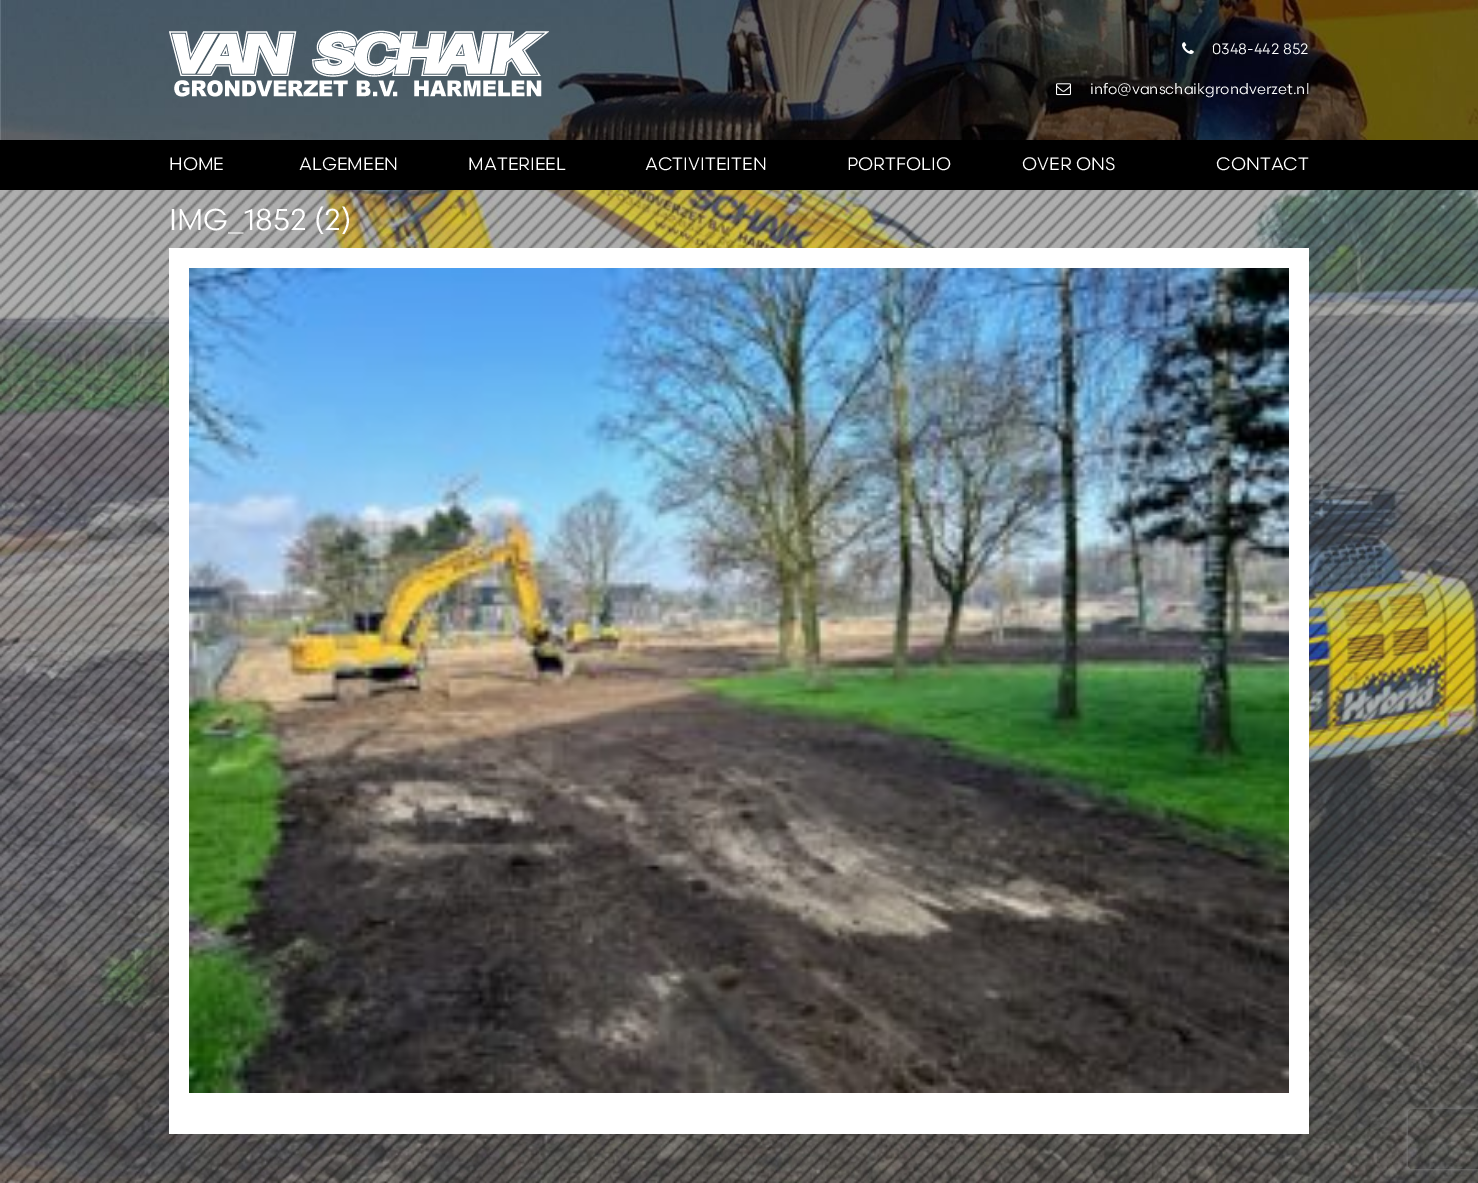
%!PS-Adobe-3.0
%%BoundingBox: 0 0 1478 1183
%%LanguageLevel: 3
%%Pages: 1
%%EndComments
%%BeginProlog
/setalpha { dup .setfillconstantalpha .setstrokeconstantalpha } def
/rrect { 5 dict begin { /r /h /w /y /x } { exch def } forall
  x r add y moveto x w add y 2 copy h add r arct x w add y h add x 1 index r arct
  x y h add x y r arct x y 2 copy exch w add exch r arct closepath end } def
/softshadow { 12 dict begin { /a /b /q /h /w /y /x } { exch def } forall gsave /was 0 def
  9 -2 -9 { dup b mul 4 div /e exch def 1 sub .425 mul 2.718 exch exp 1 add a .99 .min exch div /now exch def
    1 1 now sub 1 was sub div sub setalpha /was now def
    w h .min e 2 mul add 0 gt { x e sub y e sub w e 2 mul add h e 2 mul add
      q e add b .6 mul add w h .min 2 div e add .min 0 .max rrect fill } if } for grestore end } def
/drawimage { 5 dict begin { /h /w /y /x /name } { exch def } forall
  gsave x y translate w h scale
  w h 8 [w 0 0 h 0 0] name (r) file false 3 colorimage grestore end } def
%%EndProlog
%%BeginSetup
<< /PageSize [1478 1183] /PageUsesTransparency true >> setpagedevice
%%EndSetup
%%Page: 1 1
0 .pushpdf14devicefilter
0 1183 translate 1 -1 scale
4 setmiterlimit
1 setgray
0 0 1478 1183 rectfill
(images/1.raw) 0 0 1478 140 drawimage
(images/2.raw) 169 30 380 67 drawimage
(images/3.raw) 1182 42 12 12 drawimage
(images/4.raw) 1056 83 15 13 drawimage
0 setgray
0 140 1478 50 rectfill
(images/5.raw) 0 190 1478 993 drawimage
1 setgray
169 248 1140 886 rectfill
(images/6.raw) 189 268 1100 825 drawimage
gsave
newpath 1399 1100 moveto 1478 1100 lineto 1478 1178 lineto 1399 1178 lineto closepath 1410 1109 moveto 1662 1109 lineto 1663 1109 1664 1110 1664 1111 curveto 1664 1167 lineto 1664 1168 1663 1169 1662 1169 curveto 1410 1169 lineto 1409 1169 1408 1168 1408 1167 curveto 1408 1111 lineto 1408 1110 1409 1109 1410 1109 curveto closepath eoclip newpath
0.502 setgray
1408 1109 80 60 2 2.5 1 softshadow
grestore
/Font-Regular [15 0 0 -15 0 0] selectfont
1212 54 moveto (0348-442 852) show
1090 94 moveto (info@vanschaikgrondverzet.nl) show
/Font-Regular [18 0 0 -18 0 0] selectfont
169 170 moveto (HOME) show
299 170 moveto (ALGEMEEN) show
468 170 moveto (MATERIEEL) show
645 170 moveto (ACTIVITEITEN) show
847 170 moveto (PORTFOLIO) show
1022 170 moveto (OVER ONS) show
1216 170 moveto (CONTACT) show
/Font-Regular [30 0 0 -30 0 0] selectfont
169 230 moveto (IMG_1852 \(2\)) show
.poppdf14devicefilter showpage
%%EOF
